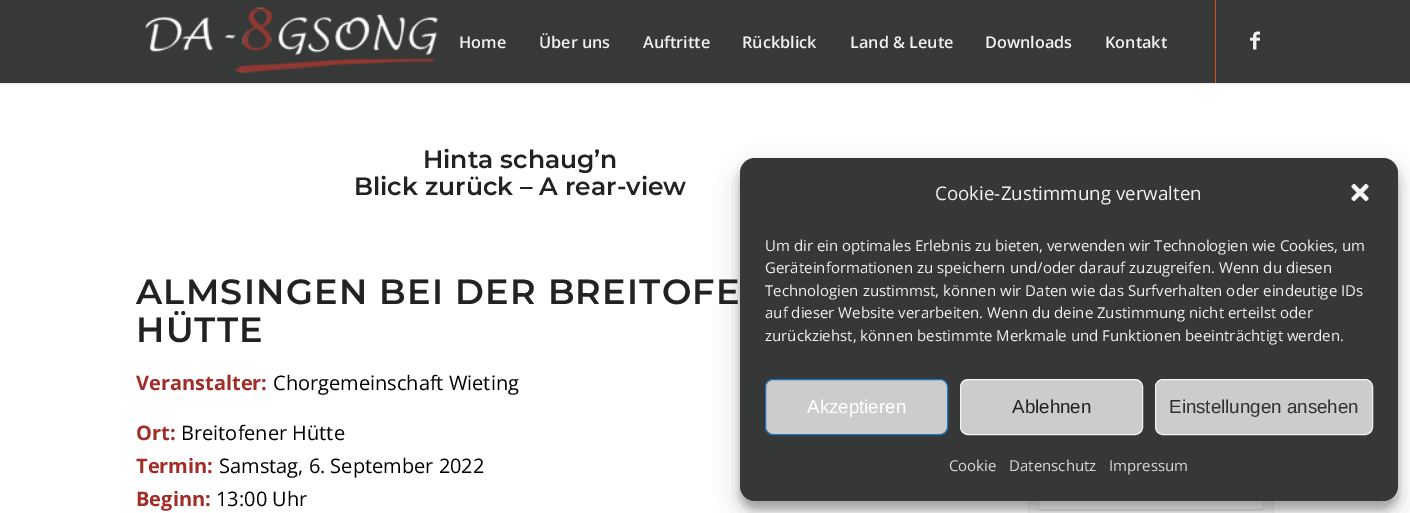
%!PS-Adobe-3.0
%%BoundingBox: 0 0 1410 513
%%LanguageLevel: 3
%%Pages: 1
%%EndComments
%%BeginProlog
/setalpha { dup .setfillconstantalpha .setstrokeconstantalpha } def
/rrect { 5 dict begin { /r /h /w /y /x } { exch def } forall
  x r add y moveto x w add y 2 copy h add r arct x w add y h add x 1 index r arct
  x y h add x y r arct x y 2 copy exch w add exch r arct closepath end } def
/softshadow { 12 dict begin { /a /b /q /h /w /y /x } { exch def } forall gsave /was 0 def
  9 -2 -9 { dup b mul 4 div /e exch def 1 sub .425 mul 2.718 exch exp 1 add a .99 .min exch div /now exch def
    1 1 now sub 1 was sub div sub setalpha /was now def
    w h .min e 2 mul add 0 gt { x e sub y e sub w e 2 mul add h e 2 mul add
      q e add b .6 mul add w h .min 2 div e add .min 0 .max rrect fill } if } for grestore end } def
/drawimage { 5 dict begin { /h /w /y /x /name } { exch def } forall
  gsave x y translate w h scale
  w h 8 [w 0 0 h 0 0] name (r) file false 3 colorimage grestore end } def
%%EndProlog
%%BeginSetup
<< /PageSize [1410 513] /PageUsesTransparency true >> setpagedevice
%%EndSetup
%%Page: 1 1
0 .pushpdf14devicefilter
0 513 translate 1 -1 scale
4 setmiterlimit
1 setgray
0 0 1410 513 rectfill
0 setgray
-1 -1 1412 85 0 1 0.1 softshadow
0.212 0.224 0.22 setrgbcolor
0 0 1410 83 rectfill
(images/1.raw) 145 7 293 67 drawimage
0.871 0.306 0.086 setrgbcolor
1215 0 1 83 rectfill
(images/2.raw) 1250 31 10 19 drawimage
0.965 0.969 0.976 setrgbcolor
1029 501 244 12 rectfill
0.914 0.922 0.933 setrgbcolor
1273 501 1 12 rectfill
1028 501 1 12 rectfill
0 setgray
1039 405 224 105 2.5 1 0.12 softshadow
1 setgray
1039 404 224 105 2.5 rrect fill
0 setgray
740 165 658 344 15 4 0.23 softshadow
740 170 658 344 15 12.5 0.19 softshadow
0.208 0.22 0.216 setrgbcolor
740 158 658 343 15 rrect fill
(images/3.raw) 1351 183 18 18 drawimage
0.8 setgray
765.5 379.5 182 55 7.5 rrect gsave fill grestore
0.118 0.451 0.745 setrgbcolor
stroke
0.8 setgray
960.5 379.5 182 55 7.5 rrect gsave fill grestore
0.949 setgray
stroke
0.8 setgray
1155.5 379.5 217 55 7.5 rrect gsave fill grestore
0.949 setgray
stroke
/OpenSans-SemiBold [16.25 0 0 -16.25 0 0] selectfont
0.941 setgray
459 48 moveto (Home) show
539 48 moveto (Über uns) show
643 48 moveto (Auftritte) show
742 48 moveto (Rückblick) show
850 48 moveto (Land & Leute) show
985 48 moveto (Downloads) show
1105 48 moveto (Kontakt) show
/Montserrat-SemiBold [25 0 0 -25 0 0] selectfont
0.133 setgray
423 168 moveto (Hinta schaug’n) show
354 195 moveto (Blick zurück – A rear-view) show
/Montserrat-SemiBold [35 0 0 -35 0 0] selectfont
136 304 moveto 1.25 0 (ALMSINGEN BEI DER BREITOFE) ashow
136 342 moveto 1.25 0 (HÜTTE) ashow
/OpenSans-Bold [20 0 0 -20 0 0] selectfont
0.635 0.173 0.149 setrgbcolor
136 390 moveto (Veranstalter:) show
/OpenSans-Regular [20 0 0 -20 0 0] selectfont
0 setgray
273 390 moveto (Chorgemeinschaft Wieting) show
/OpenSans-Bold [20 0 0 -20 0 0] selectfont
0.635 0.173 0.149 setrgbcolor
136 440 moveto (Ort:) show
/OpenSans-Regular [20 0 0 -20 0 0] selectfont
0 setgray
181 440 moveto (Breitofener Hütte) show
/OpenSans-Bold [20 0 0 -20 0 0] selectfont
0.635 0.173 0.149 setrgbcolor
136 473 moveto (Termin:) show
/OpenSans-Regular [20 0 0 -20 0 0] selectfont
0 setgray
219 473 moveto (Samstag, 6. September 2022) show
/OpenSans-Bold [20 0 0 -20 0 0] selectfont
0.635 0.173 0.149 setrgbcolor
136 506 moveto (Beginn:) show
/OpenSans-Regular [20 0 0 -20 0 0] selectfont
0 setgray
216 506 moveto (13:00 Uhr) show
/OpenSans-Regular [18.75 0 0 -18.75 0 0] selectfont
0.941 setgray
935 200 moveto (Cookie-Zustimmung verwalten) show
/OpenSans-Regular [15 0 0 -15 0 0] selectfont
765 251 moveto (Um dir ein optimales Erlebnis zu bieten, verwenden wir Technologien wie Cookies, um) show
765 273 moveto (Geräteinformationen zu speichern und/oder darauf zuzugreifen. Wenn du diesen) show
765 296 moveto (Technologien zustimmst, können wir Daten wie das Surfverhalten oder eindeutige IDs) show
765 318 moveto (auf dieser Website verarbeiten. Wenn du deine Zustimmung nicht erteilst oder) show
765 341 moveto (zurückziehst, können bestimmte Merkmale und Funktionen beeinträchtigt werden.) show
/LiberationSans-Regular [18.75 0 0 -18.75 0 0] selectfont
1 setgray
807 413 moveto (Akzeptieren) show
0.133 setgray
1012 413 moveto (Ablehnen) show
0.2 setgray
1169 413 moveto (Einstellungen ansehen) show
/OpenSans-Regular [15 0 0 -15 0 0] selectfont
0.847 setgray
949 471 moveto (Cookie) show
1009 471 moveto (Datenschutz) show
1109 471 moveto (Impressum) show
.poppdf14devicefilter showpage
%%EOF
